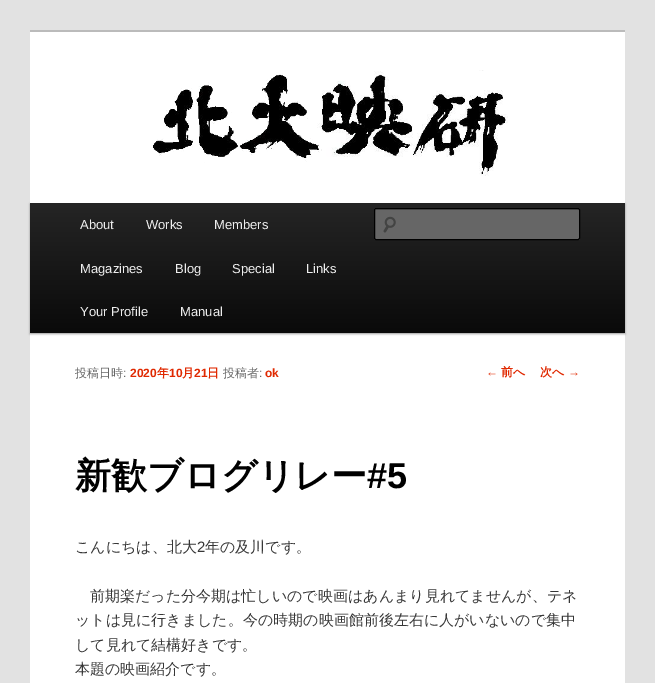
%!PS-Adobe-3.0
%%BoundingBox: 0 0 655 683
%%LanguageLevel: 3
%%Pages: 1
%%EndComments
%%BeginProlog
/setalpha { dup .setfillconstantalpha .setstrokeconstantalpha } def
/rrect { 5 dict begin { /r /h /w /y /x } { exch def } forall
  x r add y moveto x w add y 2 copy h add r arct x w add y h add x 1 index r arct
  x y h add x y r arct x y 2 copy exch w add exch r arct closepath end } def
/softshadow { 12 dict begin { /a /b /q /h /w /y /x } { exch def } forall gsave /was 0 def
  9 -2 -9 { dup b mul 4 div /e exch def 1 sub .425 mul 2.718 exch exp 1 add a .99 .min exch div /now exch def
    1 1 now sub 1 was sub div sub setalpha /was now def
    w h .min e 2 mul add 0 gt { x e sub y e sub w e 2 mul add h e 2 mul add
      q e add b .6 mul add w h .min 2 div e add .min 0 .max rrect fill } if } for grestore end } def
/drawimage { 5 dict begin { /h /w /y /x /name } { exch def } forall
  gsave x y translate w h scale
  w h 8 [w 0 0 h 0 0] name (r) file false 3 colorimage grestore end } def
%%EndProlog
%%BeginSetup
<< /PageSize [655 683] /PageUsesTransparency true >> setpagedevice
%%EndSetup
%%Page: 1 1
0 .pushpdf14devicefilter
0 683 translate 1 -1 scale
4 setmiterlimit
0.886 setgray
0 0 655 683 rectfill
1 setgray
30 32 595 651 rectfill
0.733 setgray
30 30 595 2 rectfill
0 setgray
30 204 595 130 0 1 0.4 softshadow
(images/1.raw) 30 70 595 133 drawimage
gsave newpath 30 203 moveto 625 203 lineto 625 333 lineto 30 333 lineto closepath clip newpath
<< /ShadingType 2 /ColorSpace /DeviceRGB /Coords [328 203 328 333] /Extend [true true] /Function << /FunctionType 2 /Domain [0 1] /C0 [0.145 0.145 0.145] /C1 [0.039 0.039 0.039] /N 1 >> >> shfill grestore
0.4 setgray
374 208 206 32 2 rrect fill
(images/2.raw) 383 216 13 17 drawimage
0.361 setgray
newpath 376 210 moveto 579 210 lineto 579 211 lineto 579 210 579 209 578 209 curveto 376 209 lineto 375 209 lineto 375 211 lineto 375 210 375 210 376 210 curveto closepath fill
0 setgray
374.5 208.5 205 31 1.5 rrect stroke
/LiberationSans-Regular [13 0 0 -13 0 0] selectfont
0.933 setgray
80 229 moveto (About) show
146 229 moveto (Works) show
214 229 moveto (Members) show
80 273 moveto (Magazines) show
175 273 moveto (Blog) show
232 273 moveto (Special) show
306 273 moveto (Links) show
80 316 moveto (Your Profile) show
180 316 moveto (Manual) show
/LiberationSans-Regular [12 0 0 -12 0 0] selectfont
0.878 0.157 0 setrgbcolor
486 376 moveto (←) show
/WenQuanYiZenHei-Bold [12 0 0 -12 0 0] selectfont
501 376 moveto (前へ) show
540 376 moveto (次へ) show
/LiberationSans-Regular [12 0 0 -12 0 0] selectfont
568 376 moveto (→) show
/WenQuanYiZenHei-Medium [12 0 0 -12 0 0] selectfont
0.4 setgray
75 377 moveto (投稿日時) show
/LiberationSans-Regular [12 0 0 -12 0 0] selectfont
123 377 moveto (:) show
/LiberationSans-Bold [12 0 0 -12 0 0] selectfont
0.878 0.157 0 setrgbcolor
130 377 moveto (2020) show
/WenQuanYiZenHei-Bold [12 0 0 -12 0 0] selectfont
157 377 moveto (年) show
/LiberationSans-Bold [12 0 0 -12 0 0] selectfont
169 377 moveto (10) show
/WenQuanYiZenHei-Bold [12 0 0 -12 0 0] selectfont
182 377 moveto (月) show
/LiberationSans-Bold [12 0 0 -12 0 0] selectfont
194 377 moveto (21) show
/WenQuanYiZenHei-Bold [12 0 0 -12 0 0] selectfont
207 377 moveto (日) show
/WenQuanYiZenHei-Medium [12 0 0 -12 0 0] selectfont
0.4 setgray
223 377 moveto (投稿者) show
/LiberationSans-Regular [12 0 0 -12 0 0] selectfont
259 377 moveto (:) show
/LiberationSans-Bold [12 0 0 -12 0 0] selectfont
0.878 0.157 0 setrgbcolor
265 377 moveto (ok) show
/WenQuanYiZenHei-Bold [36 0 0 -36 0 0] selectfont
0 setgray
75 488 moveto (新歓ブログリレー) show
/LiberationSans-Bold [36 0 0 -36 0 0] selectfont
367 488 moveto (#5) show
/WenQuanYiZenHei-Medium [15 0 0 -15 0 0] selectfont
0.216 setgray
75 552 moveto (こんにちは、北大) show
/LiberationSans-Regular [15 0 0 -15 0 0] selectfont
197 552 moveto (2) show
/WenQuanYiZenHei-Medium [15 0 0 -15 0 0] selectfont
205 552 moveto (年の及川です。) show
90 601 moveto (前期楽だった分今期は忙しいので映画はあんまり見れてませんが、テネ) show
75 625 moveto (ットは見に行きました。今の時期の映画館前後左右に人がいないので集中) show
75 650 moveto (して見れて結構好きです。) show
75 674 moveto (本題の映画紹介です。) show
.poppdf14devicefilter showpage
%%EOF
